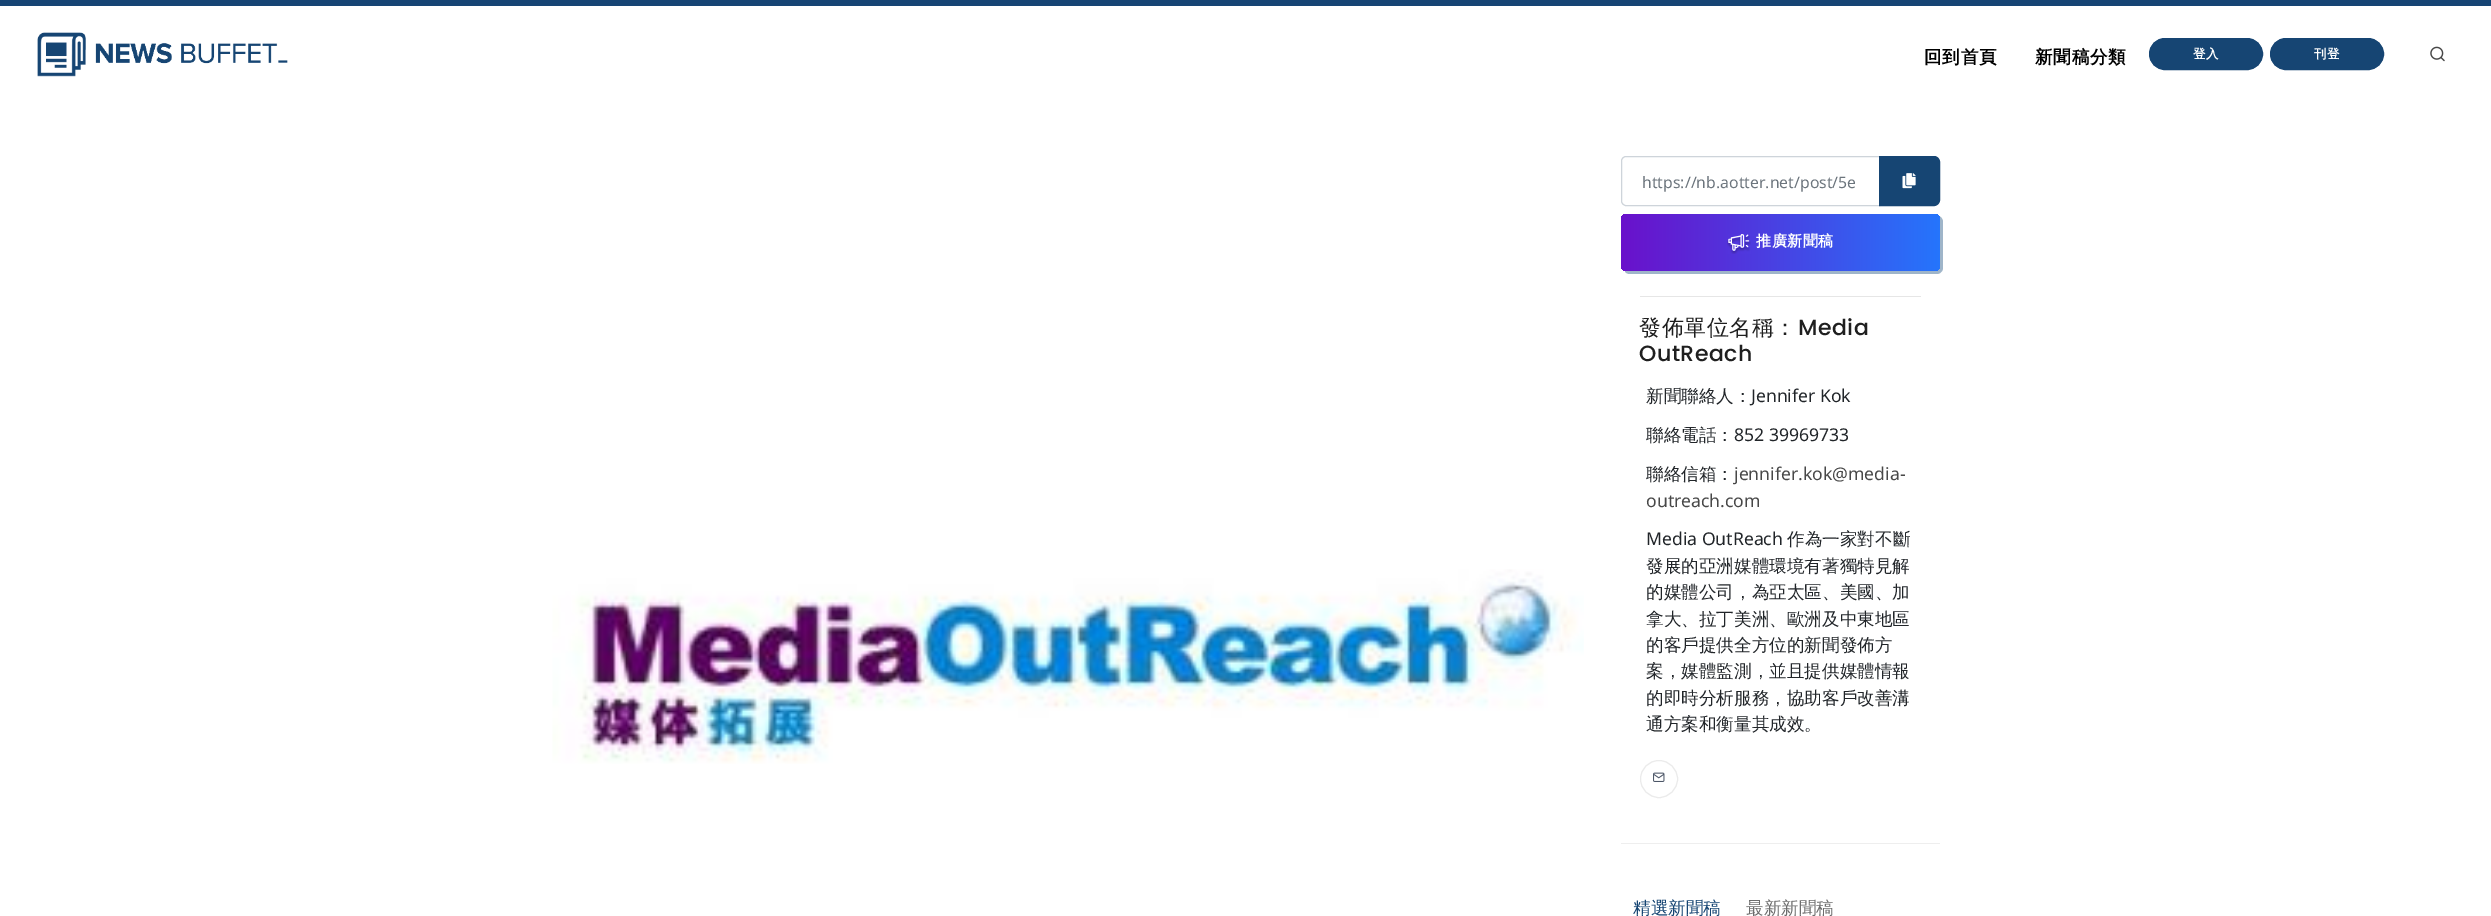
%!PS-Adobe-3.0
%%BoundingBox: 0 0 2491 916
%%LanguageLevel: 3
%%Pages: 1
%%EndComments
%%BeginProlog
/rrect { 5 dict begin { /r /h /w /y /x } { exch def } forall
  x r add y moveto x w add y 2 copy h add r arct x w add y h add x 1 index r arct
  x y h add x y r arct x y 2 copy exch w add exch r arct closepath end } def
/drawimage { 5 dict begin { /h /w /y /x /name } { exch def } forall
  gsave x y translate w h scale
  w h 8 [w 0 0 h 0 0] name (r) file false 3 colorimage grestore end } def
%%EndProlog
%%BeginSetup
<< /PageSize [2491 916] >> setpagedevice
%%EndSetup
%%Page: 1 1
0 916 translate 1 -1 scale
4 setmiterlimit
1 setgray
0 0 2491 916 rectfill
0.086 0.267 0.455 setrgbcolor
0 0 2491 6 rectfill
(images/1.raw) 37 32 251 45 drawimage
0.086 0.271 0.451 setrgbcolor
2149.5 38.5 113 31 15.5 rrect gsave fill grestore
stroke
2270.5 38.5 113 31 15.5 rrect gsave fill grestore
stroke
(images/2.raw) 2430 46 15 16 drawimage
(images/3.raw) 552 569 1032 195 drawimage
0.808 0.831 0.855 setrgbcolor
newpath 1626 156.5 moveto 1879.5 156.5 lineto 1879.5 205.5 lineto 1626 205.5 lineto 1623.5 205.5 1621.5 203.5 1621.5 201 curveto 1621.5 161 lineto 1621.5 158.5 1623.5 156.5 1626 156.5 curveto closepath stroke
0.086 0.271 0.451 setrgbcolor
newpath 1879.5 156.5 moveto 1934 156.5 lineto 1937 156.5 1939.5 159 1939.5 162 curveto 1939.5 200 lineto 1939.5 203 1937 205.5 1934 205.5 curveto 1879.5 205.5 lineto closepath gsave fill grestore
stroke
(images/4.raw) 1902 173 14 16 drawimage
0.624 0.71 0.788 setrgbcolor
newpath 1625 271 moveto 1625 273 1628 274 1630 274 curveto 1937 274 lineto 1940 274 1943 271 1943 268 curveto 1943 222 lineto 1943 219 1941 217 1939 216 curveto 1940 217 1940 219 1940 220 curveto 1940 265 lineto 1940 268 1937 271 1934 271 curveto 1628 271 lineto closepath fill
gsave 1621 214 319 57 6 rrect clip newpath
<< /ShadingType 2 /ColorSpace /DeviceRGB /Coords [1621 243 1940 243] /Extend [true true] /Function << /FunctionType 2 /Domain [0 1] /C0 [0.416 0.067 0.796] /C1 [0.145 0.459 0.988] /N 1 >> >> shfill grestore
(images/5.raw) 1727 234 24 20 drawimage
0.933 setgray
1621 843 319 1 rectfill
0.902 setgray
1640 296 281 1 rectfill
0.922 setgray
newpath 1659 779 18.5 0 360 arc closepath stroke
(images/6.raw) 1653 772 12 10 drawimage
/WenQuanYiZenHei-Bold [17.6 0 0 -17.6 0 0] selectfont
0 setgray
1924 63 moveto 0.75 0 (回到首頁) ashow
2035 63 moveto 0.75 0 (新聞稿分類) ashow
/WenQuanYiZenHei-Bold [12.5 0 0 -12.5 0 0] selectfont
1 setgray
2193 58 moveto 0.5 0 (登入) ashow
2314 58 moveto 0.5 0 (刊登) ashow
/NotoSans-Regular [15.8 0 0 -15.8 0 0] selectfont
0.424 0.459 0.49 setrgbcolor
1642 188 moveto (https://nb.aotter.net/post/5e) show
/WenQuanYiZenHei-Bold [15 0 0 -15 0 0] selectfont
1 setgray
1756 246 moveto 0.5 0 (推廣新聞稿) ashow
/WenQuanYiZenHei-Medium [22 0 0 -22 0 0] selectfont
0.122 setgray
1639 335 moveto 0.5 0 (發佈單位名稱：) ashow
/Poppins-Medium [22 0 0 -22 0 0] selectfont
1798 335 moveto 0.5 0 (Media) ashow
1639 361 moveto 0.5 0 (OutReach) ashow
/WenQuanYiZenHei-Medium [17.6 0 0 -17.6 0 0] selectfont
0.129 0.145 0.161 setrgbcolor
1646 402 moveto (新聞聯絡人：) show
/NotoSans-Regular [17.6 0 0 -17.6 0 0] selectfont
1751 402 moveto (Jennifer Kok) show
/WenQuanYiZenHei-Medium [17.6 0 0 -17.6 0 0] selectfont
1646 441 moveto (聯絡電話：) show
/NotoSans-Regular [17.6 0 0 -17.6 0 0] selectfont
1734 441 moveto (852 39969733) show
/WenQuanYiZenHei-Medium [17.6 0 0 -17.6 0 0] selectfont
1646 480 moveto (聯絡信箱：) show
/NotoSans-Regular [17.6 0 0 -17.6 0 0] selectfont
0.282 setgray
1734 480 moveto (jennifer.kok@media-) show
1646 507 moveto (outreach.com) show
0.129 0.145 0.161 setrgbcolor
1646 545 moveto (Media OutReach) show
/WenQuanYiZenHei-Medium [17.6 0 0 -17.6 0 0] selectfont
1787 545 moveto (作為一家對不斷) show
1646 572 moveto (發展的亞洲媒體環境有著獨特見解) show
1646 598 moveto (的媒體公司，為亞太區、美國、加) show
1646 625 moveto (拿大、拉丁美洲、歐洲及中東地區) show
1646 651 moveto (的客戶提供全方位的新聞發佈方) show
1646 677 moveto (案，媒體監測，並且提供媒體情報) show
1646 704 moveto (的即時分析服務，協助客戶改善溝) show
1646 730 moveto (通方案和衡量其成效。) show
0.086 0.271 0.451 setrgbcolor
1633 914 moveto (精選新聞稿) show
0.427 setgray
1746 914 moveto (最新新聞稿) show
showpage
%%EOF
